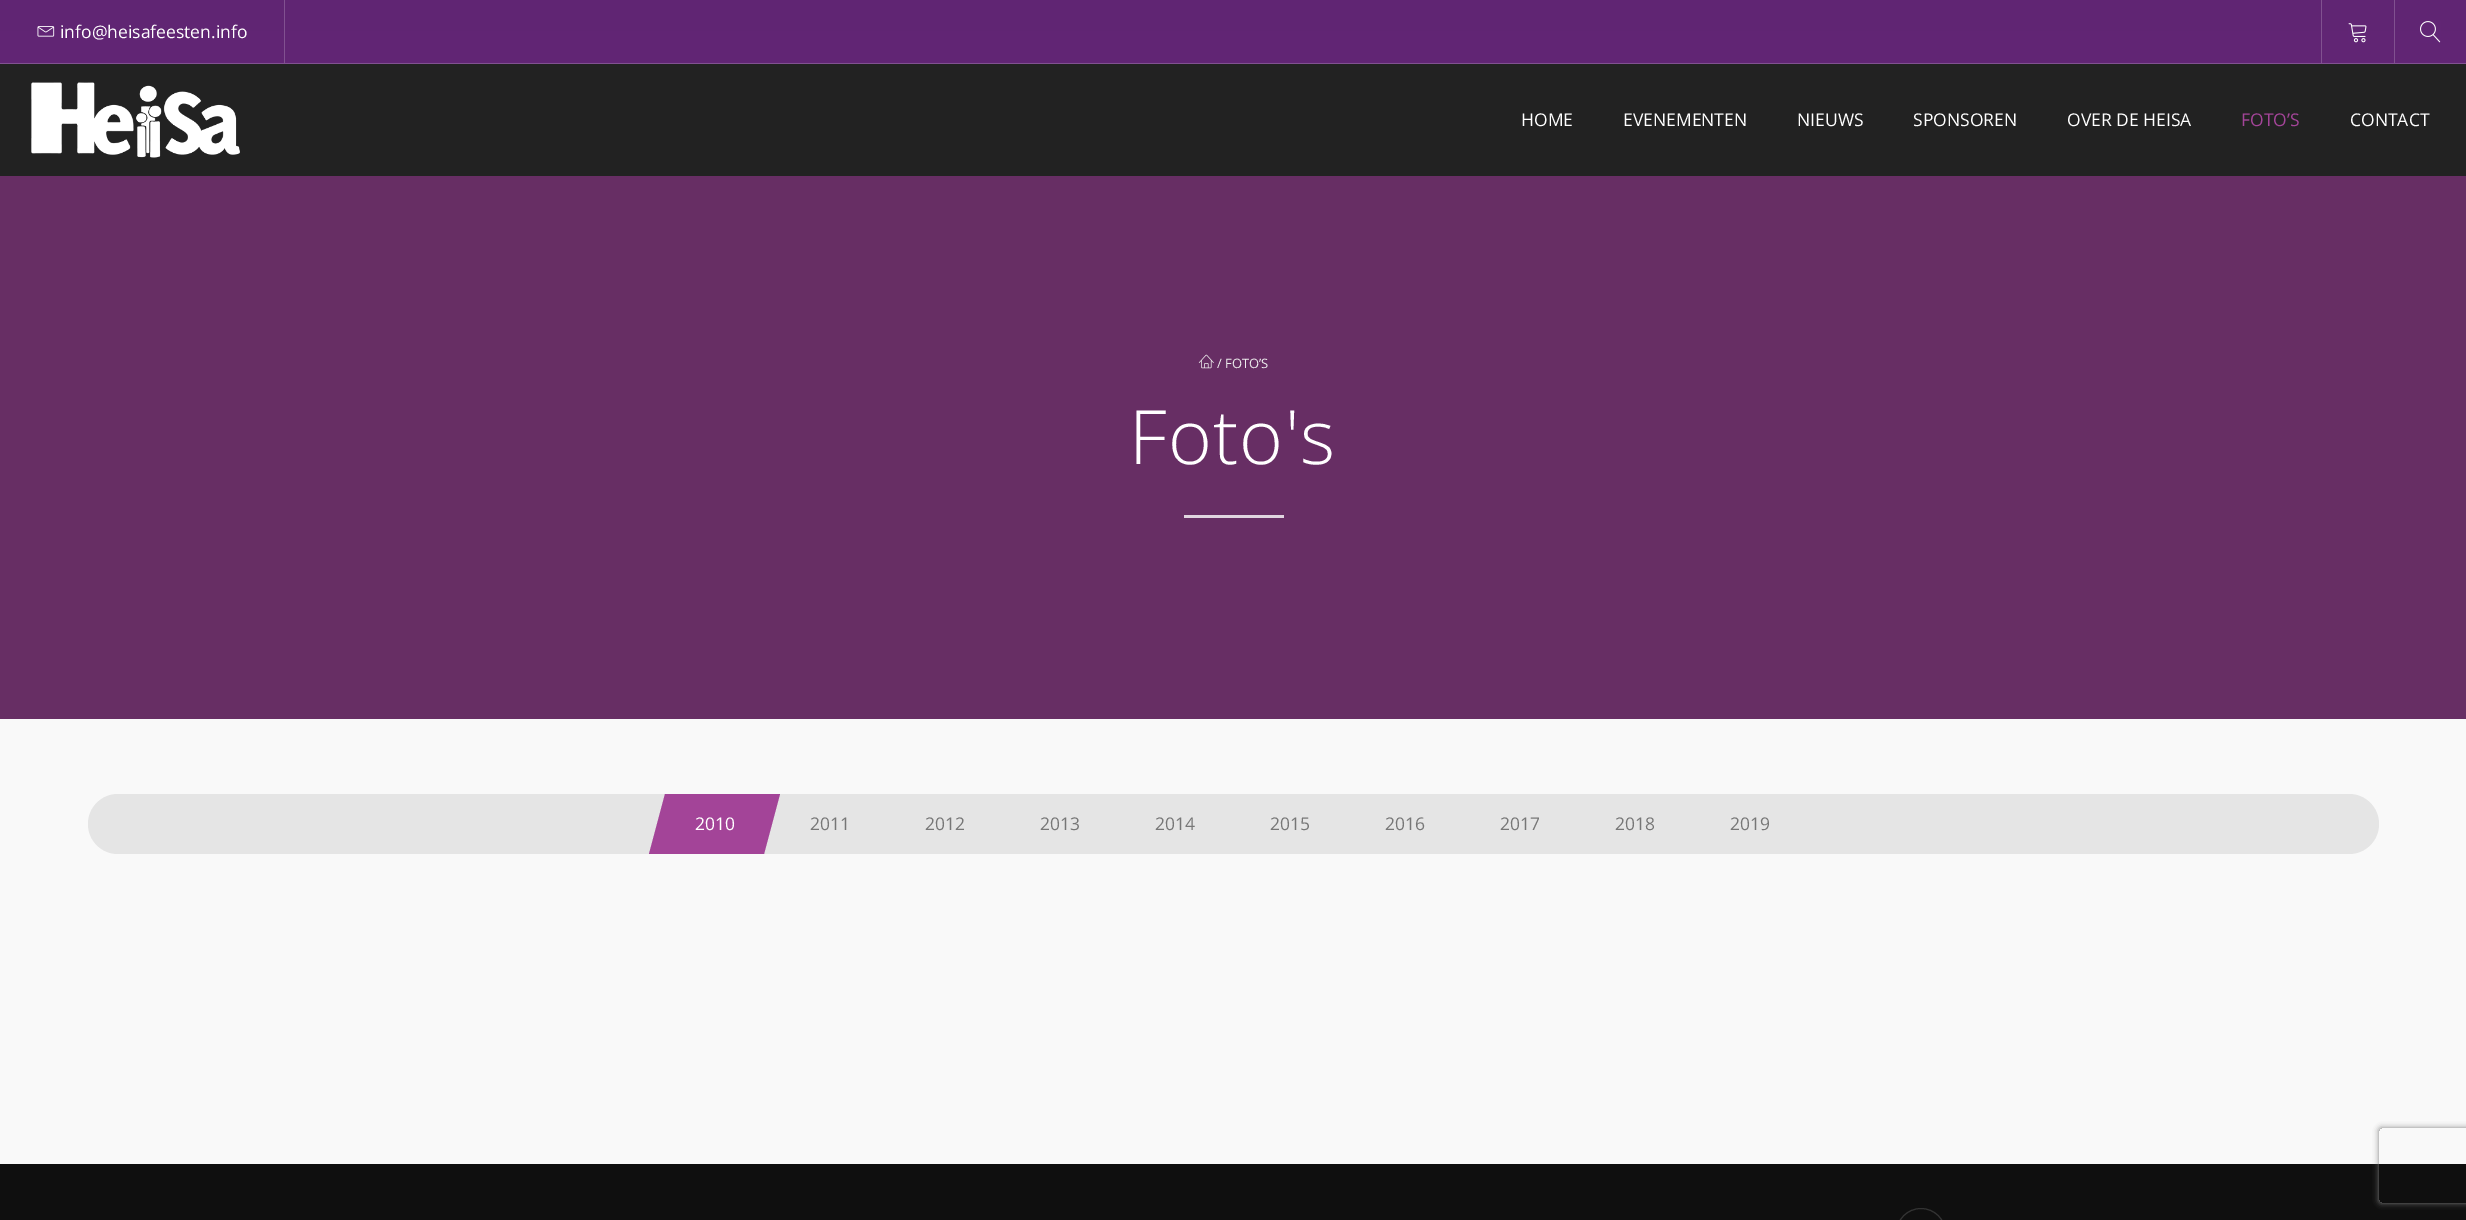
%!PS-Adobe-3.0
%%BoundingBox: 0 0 2466 1220
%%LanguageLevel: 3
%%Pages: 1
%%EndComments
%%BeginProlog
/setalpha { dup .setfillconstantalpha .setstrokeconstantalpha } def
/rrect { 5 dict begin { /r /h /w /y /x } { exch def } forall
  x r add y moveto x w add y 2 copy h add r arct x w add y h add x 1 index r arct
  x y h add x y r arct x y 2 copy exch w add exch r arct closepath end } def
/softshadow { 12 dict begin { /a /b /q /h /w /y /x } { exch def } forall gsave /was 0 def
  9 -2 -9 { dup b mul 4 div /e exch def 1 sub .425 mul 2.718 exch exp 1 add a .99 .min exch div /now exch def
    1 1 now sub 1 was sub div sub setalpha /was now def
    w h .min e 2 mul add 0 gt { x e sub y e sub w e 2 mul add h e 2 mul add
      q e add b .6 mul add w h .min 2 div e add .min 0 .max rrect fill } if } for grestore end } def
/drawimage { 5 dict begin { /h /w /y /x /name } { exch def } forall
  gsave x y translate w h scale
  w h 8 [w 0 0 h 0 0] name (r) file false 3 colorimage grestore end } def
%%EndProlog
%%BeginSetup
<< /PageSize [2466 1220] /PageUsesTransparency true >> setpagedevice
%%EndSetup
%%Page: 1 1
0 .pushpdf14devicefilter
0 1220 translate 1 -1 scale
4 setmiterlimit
0.976 setgray
0 0 2466 1220 rectfill
gsave newpath 0 0 moveto 2466 0 lineto 2466 63 lineto 0 63 lineto closepath clip newpath
<< /ShadingType 2 /ColorSpace /DeviceRGB /Coords [1233 0 1233 176] /Extend [true true] /Function << /FunctionType 2 /Domain [0 1] /C0 [0.376 0.145 0.451] /C1 [0.404 0.153 0.478] /N 1 >> >> shfill grestore
0.506 0.318 0.569 setrgbcolor
0 63 2466 1 rectfill
0.506 0.318 0.565 setrgbcolor
284 0 1 63 rectfill
(images/1.raw) 37 26 18 11 drawimage
2321 0 1 63 rectfill
(images/2.raw) 2348 23 19 20 drawimage
2394 0 1 63 rectfill
(images/3.raw) 2420 21 21 22 drawimage
0.133 setgray
0 64 2466 112 rectfill
(images/4.raw) 31 82 209 76 drawimage
0.404 0.18 0.392 setrgbcolor
0 176 2466 543 rectfill
(images/5.raw) 1198 354 16 15 drawimage
0.882 0.835 0.878 setrgbcolor
1184 515 100 3 rectfill
0.898 setgray
88 794 2291 60 30 rrect fill
0.639 0.267 0.596 setrgbcolor
newpath 665 794 moveto 780 794 lineto 764 854 lineto 649 854 lineto closepath fill
0.059 setgray
0 1164 2466 56 rectfill
0.2 setgray
1896.5 1208.5 49 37 24.5 rrect stroke
gsave
newpath 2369 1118 moveto 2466 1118 lineto 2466 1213 lineto 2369 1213 lineto closepath 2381.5 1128 moveto 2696.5 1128 lineto 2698 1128 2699 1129 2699 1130.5 curveto 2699 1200.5 lineto 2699 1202 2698 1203 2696.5 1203 curveto 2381.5 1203 lineto 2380 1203 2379 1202 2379 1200.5 curveto 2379 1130.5 lineto 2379 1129 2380 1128 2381.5 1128 curveto closepath eoclip newpath
0.502 setgray
2379 1128 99 75 2.5 3 1 softshadow
grestore
/OpenSans-Regular [17.5 0 0 -17.5 0 0] selectfont
1 setgray
60 38 moveto (info@heisafeesten.info) show
1521 126 moveto (HOME) show
1623 126 moveto (EVENEMENTEN) show
1797 126 moveto (NIEUWS) show
1913 126 moveto (SPONSOREN) show
2067 126 moveto (OVER DE HEISA) show
0.639 0.267 0.596 setrgbcolor
2241 126 moveto (FOTO’S) show
1 setgray
2350 126 moveto (CONTACT) show
/OpenSans-Regular [13 0 0 -13 0 0] selectfont
0.933 setgray
1217 368 moveto (/ FOTO’S) show
/OpenSans-Light [75 0 0 -75 0 0] selectfont
1 setgray
1129 464 moveto 1.25 0 (Foto's) ashow
/OpenSans-Regular [17.5 0 0 -17.5 0 0] selectfont
695 830 moveto (2010) show
0.467 setgray
810 830 moveto (2011) show
925 830 moveto (2012) show
1040 830 moveto (2013) show
1155 830 moveto (2014) show
1270 830 moveto (2015) show
1385 830 moveto (2016) show
1500 830 moveto (2017) show
1615 830 moveto (2018) show
1730 830 moveto (2019) show
.poppdf14devicefilter showpage
%%EOF
